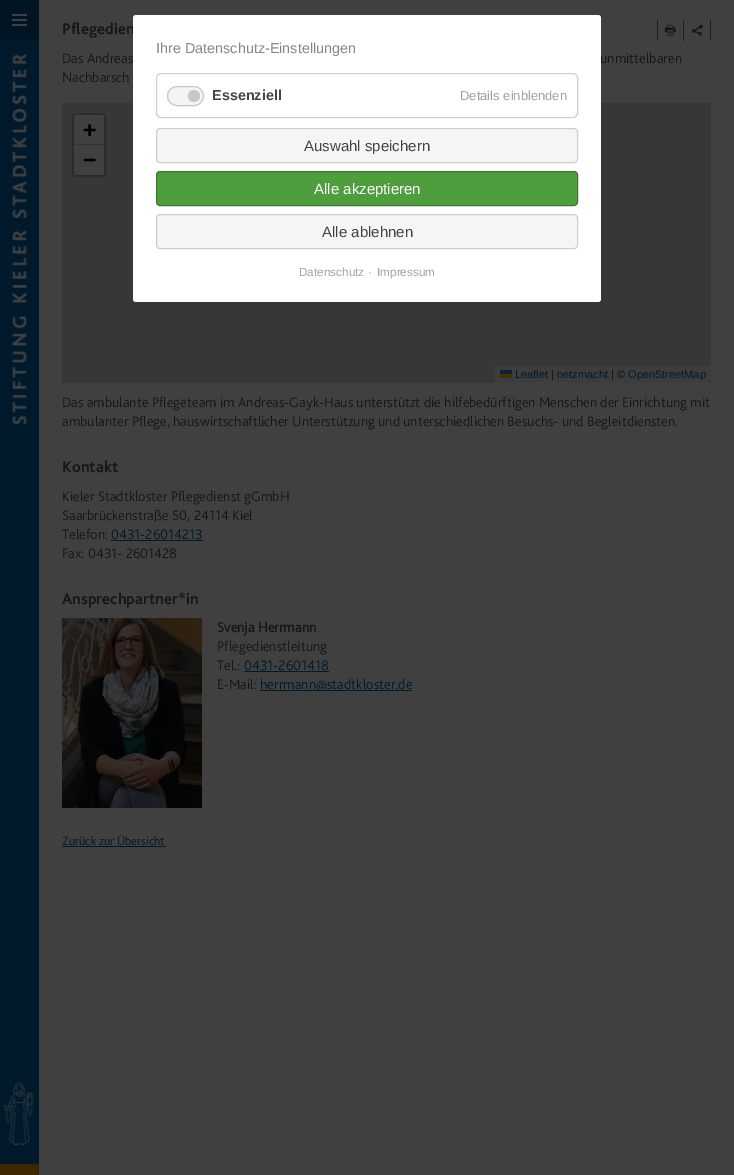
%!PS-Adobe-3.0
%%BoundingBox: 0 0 734 1175
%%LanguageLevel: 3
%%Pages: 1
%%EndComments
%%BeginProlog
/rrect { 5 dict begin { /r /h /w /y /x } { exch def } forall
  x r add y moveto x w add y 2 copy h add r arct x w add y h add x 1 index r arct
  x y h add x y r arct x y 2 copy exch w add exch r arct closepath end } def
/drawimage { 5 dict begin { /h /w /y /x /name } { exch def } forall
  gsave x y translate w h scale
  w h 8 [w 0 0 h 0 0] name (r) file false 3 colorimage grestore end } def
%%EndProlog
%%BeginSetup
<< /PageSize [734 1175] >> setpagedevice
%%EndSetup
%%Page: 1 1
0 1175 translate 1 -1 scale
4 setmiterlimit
0.251 setgray
0 0 734 1175 rectfill
0 0.102 0.173 setrgbcolor
0 41 39 1134 rectfill
0 0.082 0.141 setrgbcolor
0 0 39 41 rectfill
0.251 setgray
12 14 15 2 rectfill
12 19 15 2 rectfill
12 24 15 2 rectfill
(images/1.raw) 12 54 15 371 drawimage
(images/2.raw) 0 1082 39 93 drawimage
0.125 0.122 0.118 setrgbcolor
657 20 1 21 rectfill
(images/3.raw) 665 24 11 12 drawimage
710 20 1 21 rectfill
683 20 1 21 rectfill
(images/4.raw) 692 24 11 12 drawimage
0.216 setgray
62 103 649 280 rectfill
0.173 setgray
2 setlinewidth
73 114 32 62 3 rrect stroke
0.251 setgray
newpath 76 115 moveto 102 115 lineto 103 115 104 116 104 117 curveto 104 145 lineto 74 145 lineto 74 117 lineto 74 116 75 115 76 115 curveto closepath fill
0.2 setgray
74 144 30 1 rectfill
0.251 setgray
newpath 74 145 moveto 104 145 lineto 104 173 lineto 104 174 103 175 102 175 curveto 76 175 lineto 75 175 74 174 74 173 curveto closepath fill
0.239 setgray
495 366 216 17 rectfill
0.075 0.122 0.22 setrgbcolor
500 370 12 4 rectfill
0.251 0.208 0 setrgbcolor
500 374 12 3 rectfill
0.22 0.184 0 setrgbcolor
500 377 12 1 rectfill
0 0.102 0.173 setrgbcolor
111 540 92 1 rectfill
(images/5.raw) 62 618 140 190 drawimage
244 671 85 1 rectfill
260 690 152 1 rectfill
62 846 104 1 rectfill
/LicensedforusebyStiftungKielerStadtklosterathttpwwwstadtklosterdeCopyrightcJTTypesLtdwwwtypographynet-Bold [16.25 0 0 -16.25 0 0] selectfont
0.09 0.086 0.082 setrgbcolor
62 34 moveto (Pflegedien) show
/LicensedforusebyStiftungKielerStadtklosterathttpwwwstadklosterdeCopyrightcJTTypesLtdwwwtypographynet-Light [14.4 0 0 -14.4 0 0] selectfont
62 63 moveto (Das Andreas) show
600 63 moveto (unmittelbaren) show
62 82 moveto (Nachbarsch) show
/DejaVuSansMono-Bold [22 0 0 -22 0 0] selectfont
0 setgray
83 137 moveto (+) show
83 167 moveto (−) show
/LiberationSans-Regular [11 0 0 -11 0 0] selectfont
0 0.102 0.173 setrgbcolor
515 378 moveto (Leaflet) show
0.051 setgray
551 378 moveto (|) show
0 0.102 0.173 setrgbcolor
557 378 moveto (netzmacht) show
0.051 setgray
611 378 moveto (| ©) show
0 0.102 0.173 setrgbcolor
628 378 moveto (OpenStreetMap) show
/LicensedforusebyStiftungKielerStadtklosterathttpwwwstadklosterdeCopyrightcJTTypesLtdwwwtypographynet-Light [14.4 0 0 -14.4 0 0] selectfont
0.09 0.086 0.082 setrgbcolor
62 407 moveto (Das ambulante Pflegeteam im Andreas-Gayk-Haus unterstützt die hilfebedürftigen Menschen der Einrichtung mit) show
62 426 moveto (ambulanter Pflege, hauswirtschaftlicher Unterstützung und unterschiedlichen Besuchs- und Begleitdiensten.) show
/LicensedforusebyStiftungKielerStadtklosterathttpwwwstadtklosterdeCopyrightcJTTypesLtdwwwtypographynet-Bold [16.25 0 0 -16.25 0 0] selectfont
62 472 moveto (Kontakt) show
/LicensedforusebyStiftungKielerStadtklosterathttpwwwstadklosterdeCopyrightcJTTypesLtdwwwtypographynet-Light [14.4 0 0 -14.4 0 0] selectfont
62 501 moveto (Kieler Stadtkloster Pflegedienst gGmbH) show
62 520 moveto (Saarbrückenstraße 50, 24114 Kiel) show
62 539 moveto (Telefon:) show
0 0.102 0.173 setrgbcolor
111 539 moveto (0431-26014213) show
0.09 0.086 0.082 setrgbcolor
62 558 moveto (Fax: 0431- 2601428) show
/LicensedforusebyStiftungKielerStadtklosterathttpwwwstadtklosterdeCopyrightcJTTypesLtdwwwtypographynet-Bold [16.25 0 0 -16.25 0 0] selectfont
62 604 moveto (Ansprechpartner*in) show
/LicensedforusebyStiftungKielerStadtklosterathttpwwwstadklosterdeCopyrightcJTTypesLtdwwwtypographynet-Bold [14.4 0 0 -14.4 0 0] selectfont
217 632 moveto (Svenja Herrmann) show
/LicensedforusebyStiftungKielerStadtklosterathttpwwwstadklosterdeCopyrightcJTTypesLtdwwwtypographynet-Light [14.4 0 0 -14.4 0 0] selectfont
217 651 moveto (Pflegedienstleitung) show
217 670 moveto (Tel.:) show
0 0.102 0.173 setrgbcolor
244 670 moveto (0431-2601418) show
0.09 0.086 0.082 setrgbcolor
217 689 moveto (E-Mail:) show
0 0.102 0.173 setrgbcolor
260 689 moveto (herrmann@stadtkloster.de) show
/LicensedforusebyStiftungKielerStadtklosterathttpwwwstadklosterdeCopyrightcJTTypesLtdwwwtypographynet-Light [12.5 0 0 -12.5 0 0] selectfont
62 845 moveto (Zurück zur Übersicht) show
1 setgray
133 15 468 287 3 rrect fill
/LiberationSans-Regular [14.4 0 0 -14.4 0 0] selectfont
0.525 setgray
156 53 moveto (Ihre Datenschutz-Einstellungen) show
0.816 setgray
1 setlinewidth
156.5 73.5 421 44 4.5 rrect stroke
0.957 setgray
167.5 86.5 36 19 9.5 rrect gsave fill grestore
0.784 0.78 0.773 setrgbcolor
stroke
/LiberationSans-Bold [14.4 0 0 -14.4 0 0] selectfont
0.267 setgray
212 100 moveto (Essenziell) show
0.784 0.78 0.773 setrgbcolor
newpath 194 96 6 0 360 arc closepath fill
/LiberationSans-Regular [13 0 0 -13 0 0] selectfont
0.635 setgray
460 100 moveto (Details einblenden) show
0.961 setgray
156.5 128.5 421 34 3.5 rrect gsave fill grestore
0.812 setgray
stroke
/LiberationSans-Regular [15 0 0 -15 0 0] selectfont
0.267 setgray
304 151 moveto (Auswahl speichern) show
0.306 0.62 0.243 setrgbcolor
156.5 171.5 421 34 3.5 rrect gsave fill grestore
0.243 0.471 0.188 setrgbcolor
stroke
1 setgray
314 194 moveto (Alle akzeptieren) show
0.961 setgray
156.5 214.5 421 34 3.5 rrect gsave fill grestore
0.812 setgray
stroke
0.267 setgray
322 237 moveto (Alle ablehnen) show
/LiberationSans-Regular [11.75 0 0 -11.75 0 0] selectfont
0.635 setgray
299 276 moveto (Datenschutz) show
368 276 moveto (·) show
377 276 moveto (Impressum) show
showpage
%%EOF
